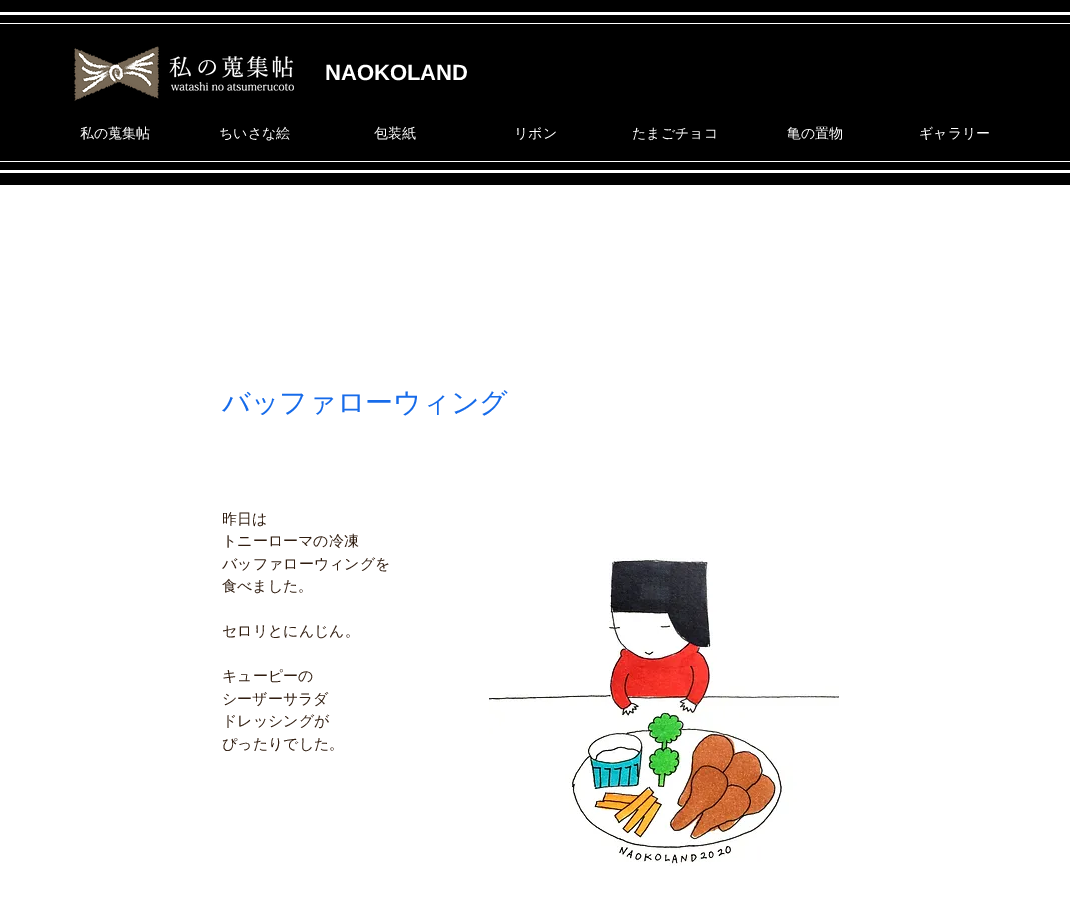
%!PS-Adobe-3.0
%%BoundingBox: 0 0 1070 899
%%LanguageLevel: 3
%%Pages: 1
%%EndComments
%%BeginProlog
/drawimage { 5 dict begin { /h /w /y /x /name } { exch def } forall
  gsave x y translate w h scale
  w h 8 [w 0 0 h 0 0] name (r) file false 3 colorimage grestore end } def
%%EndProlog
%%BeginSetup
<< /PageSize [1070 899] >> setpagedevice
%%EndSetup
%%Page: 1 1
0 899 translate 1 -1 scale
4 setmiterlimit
1 setgray
0 0 1070 899 rectfill
0 setgray
0 0 1070 185 rectfill
1 setgray
0 12 1070 3 rectfill
0 170 1070 3 rectfill
0 23 1070 1 rectfill
0 161 1070 1 rectfill
(images/1.raw) 74 46 220 55 drawimage
(images/2.raw) 489 558 350 308 drawimage
/LiberationSans-Bold [22 0 0 -22 0 0] selectfont
325 80 moveto (NAOKOLAND) show
/WenQuanYiZenHei-Medium [14 0 0 -14 0 0] selectfont
80 138 moveto (私の蒐集帖) show
219 138 moveto (ちいさな絵) show
374 138 moveto (包装紙) show
514 138 moveto (リボン) show
632 138 moveto (たまごチョコ) show
787 138 moveto (亀の置物) show
919 138 moveto (ギャラリー) show
/WenQuanYiZenHei-Medium [28 0 0 -28 0 0] selectfont
0.086 0.42 0.918 setrgbcolor
222 412 moveto (バッファローウィング) show
/WenQuanYiZenHei-Medium [15 0 0 -15 0 0] selectfont
0.188 0.114 0.063 setrgbcolor
222 524 moveto (昨日は) show
222 546 moveto (トニーローマの冷凍) show
222 569 moveto (バッファローウィングを) show
222 591 moveto (食べました。) show
222 636 moveto (セロリとにんじん。) show
222 681 moveto (キューピーの) show
222 704 moveto (シーザーサラダ) show
222 726 moveto (ドレッシングが) show
222 749 moveto (ぴったりでした。) show
showpage
%%EOF
